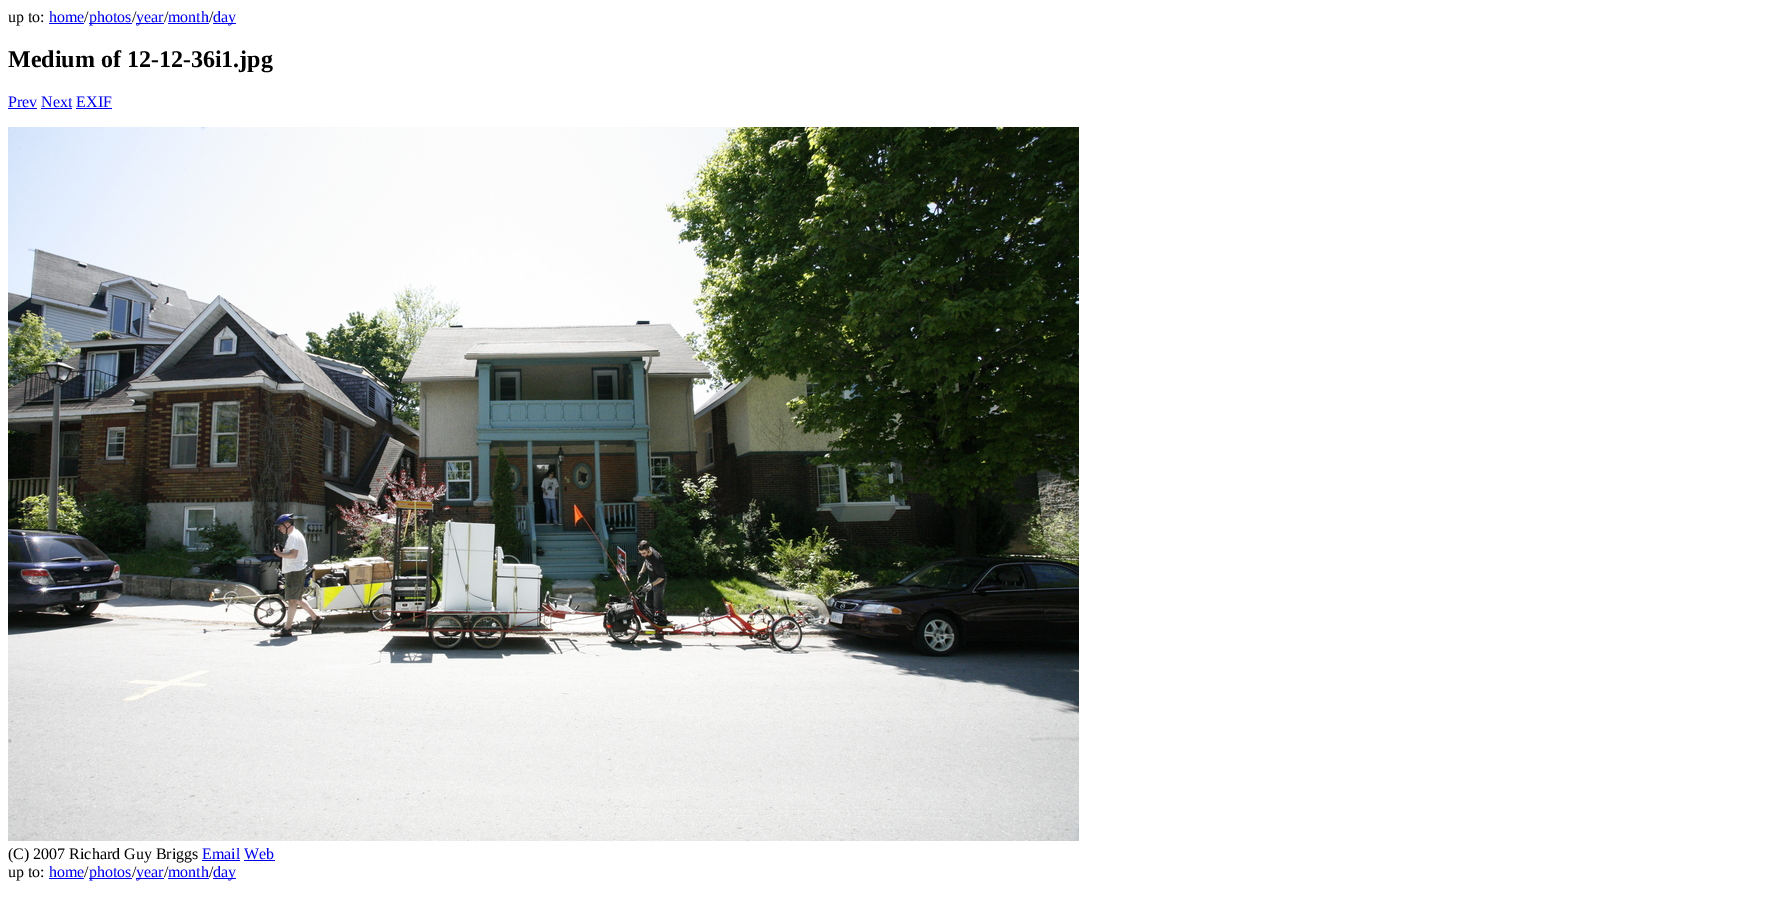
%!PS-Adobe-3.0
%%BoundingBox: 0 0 1767 904
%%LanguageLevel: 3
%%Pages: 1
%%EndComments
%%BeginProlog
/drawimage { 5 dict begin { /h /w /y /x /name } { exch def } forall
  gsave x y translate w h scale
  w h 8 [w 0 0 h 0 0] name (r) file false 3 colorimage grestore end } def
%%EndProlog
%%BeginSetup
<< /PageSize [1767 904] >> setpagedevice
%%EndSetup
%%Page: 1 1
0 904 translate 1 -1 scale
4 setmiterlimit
1 setgray
0 0 1767 904 rectfill
0 0 0.933 setrgbcolor
49 23 35 1 rectfill
89 23 43 1 rectfill
136 23 28 1 rectfill
168 23 41 1 rectfill
213 23 23 1 rectfill
8 108 29 1 rectfill
41 108 31 1 rectfill
76 108 36 1 rectfill
(images/1.raw) 8 127 1071 714 drawimage
202 860 38 1 rectfill
244 860 31 1 rectfill
49 878 35 1 rectfill
89 878 43 1 rectfill
136 878 28 1 rectfill
168 878 41 1 rectfill
213 878 23 1 rectfill
/LiberationSerif-Regular [16 0 0 -16 0 0] selectfont
0 setgray
8 22 moveto (up to:) show
0 0 0.933 setrgbcolor
49 22 moveto (home) show
0 setgray
84 22 moveto (/) show
0 0 0.933 setrgbcolor
89 22 moveto (photos) show
0 setgray
132 22 moveto (/) show
0 0 0.933 setrgbcolor
136 22 moveto (year) show
0 setgray
164 22 moveto (/) show
0 0 0.933 setrgbcolor
168 22 moveto (month) show
0 setgray
209 22 moveto (/) show
0 0 0.933 setrgbcolor
213 22 moveto (day) show
/LiberationSerif-Bold [24 0 0 -24 0 0] selectfont
0 setgray
8 67 moveto (Medium of 12-12-36i1.jpg) show
/LiberationSerif-Regular [16 0 0 -16 0 0] selectfont
0 0 0.933 setrgbcolor
8 107 moveto (Prev Next EXIF) show
0 setgray
8 859 moveto (\(C\) 2007 Richard Guy Briggs) show
0 0 0.933 setrgbcolor
202 859 moveto (Email Web) show
0 setgray
8 877 moveto (up to:) show
0 0 0.933 setrgbcolor
49 877 moveto (home) show
0 setgray
84 877 moveto (/) show
0 0 0.933 setrgbcolor
89 877 moveto (photos) show
0 setgray
132 877 moveto (/) show
0 0 0.933 setrgbcolor
136 877 moveto (year) show
0 setgray
164 877 moveto (/) show
0 0 0.933 setrgbcolor
168 877 moveto (month) show
0 setgray
209 877 moveto (/) show
0 0 0.933 setrgbcolor
213 877 moveto (day) show
showpage
%%EOF
